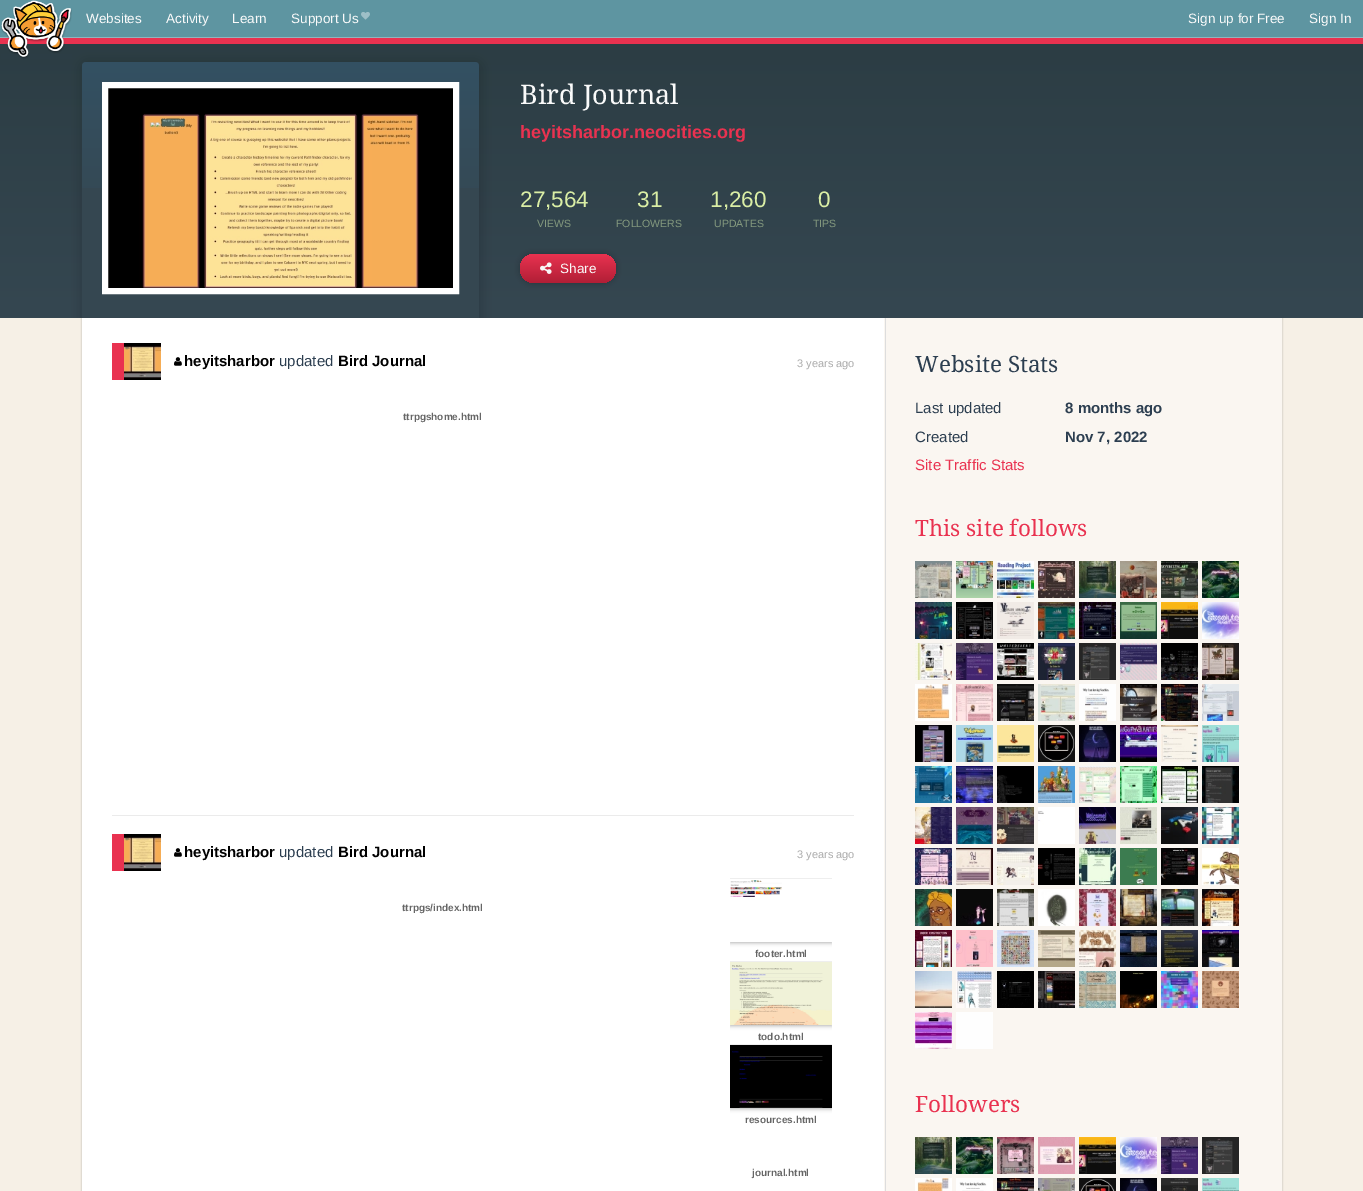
%!PS-Adobe-3.0
%%BoundingBox: 0 0 1363 1191
%%LanguageLevel: 3
%%Pages: 1
%%EndComments
%%BeginProlog
/setalpha { dup .setfillconstantalpha .setstrokeconstantalpha } def
/rrect { 5 dict begin { /r /h /w /y /x } { exch def } forall
  x r add y moveto x w add y 2 copy h add r arct x w add y h add x 1 index r arct
  x y h add x y r arct x y 2 copy exch w add exch r arct closepath end } def
/softshadow { 12 dict begin { /a /b /q /h /w /y /x } { exch def } forall gsave /was 0 def
  9 -2 -9 { dup b mul 4 div /e exch def 1 sub .425 mul 2.718 exch exp 1 add a .99 .min exch div /now exch def
    1 1 now sub 1 was sub div sub setalpha /was now def
    w h .min e 2 mul add 0 gt { x e sub y e sub w e 2 mul add h e 2 mul add
      q e add b .6 mul add w h .min 2 div e add .min 0 .max rrect fill } if } for grestore end } def
/drawimage { 5 dict begin { /h /w /y /x /name } { exch def } forall
  gsave x y translate w h scale
  w h 8 [w 0 0 h 0 0] name (r) file false 3 colorimage grestore end } def
%%EndProlog
%%BeginSetup
<< /PageSize [1363 1191] /PageUsesTransparency true >> setpagedevice
%%EndSetup
%%Page: 1 1
0 .pushpdf14devicefilter
0 1191 translate 1 -1 scale
4 setmiterlimit
0.965 0.941 0.902 setrgbcolor
0 0 1363 1191 rectfill
gsave newpath 0 44 moveto 1363 44 lineto 1363 318 lineto 0 318 lineto closepath clip newpath
<< /ShadingType 2 /ColorSpace /DeviceRGB /Coords [682 22 682 318] /Extend [true true] /Function << /FunctionType 2 /Domain [0 1] /C0 [0.169 0.235 0.263] /C1 [0.208 0.278 0.318] /N 1 >> >> shfill grestore
gsave
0 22 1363 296 rectclip
0 setgray
81 62 401 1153 6 6 0.15 softshadow
grestore
0.914 0.196 0.314 setrgbcolor
0 38 1363 6 rectfill
0.369 0.584 0.631 setrgbcolor
0 0 1363 37 rectfill
0.573 0.706 0.741 setrgbcolor
0 37 1363 1 rectfill
(images/1.raw) 1 0 71 59 drawimage
(images/2.raw) 361 12 9 8 drawimage
0.208 0.278 0.318 setrgbcolor
newpath 86 62 moveto 475 62 lineto 477 62 479 64 479 66 curveto 479 318 lineto 82 318 lineto 82 66 lineto 82 64 84 62 86 62 curveto closepath fill
(images/3.raw) 82 62 397 126 drawimage
(images/4.raw) 108 88 345 200 drawimage
1 setgray
6 setlinewidth
105 85 351 206 rectstroke
0 setgray
520 254 96 29 14.5 3 0.25 softshadow
gsave 520 254 96 29 14.5 rrect clip newpath
<< /ShadingType 2 /ColorSpace /DeviceRGB /Coords [568 254 568 283] /Extend [true true] /Function << /FunctionType 2 /Domain [0 1] /C0 [0.914 0.196 0.314] /C1 [0.694 0.122 0.212] /N 1 >> >> shfill grestore
(images/5.raw) 540 262 12 12 drawimage
81 318 1202 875 0 0.5 0.1 softshadow
0.98 0.965 0.945 setrgbcolor
884 318 398 873 rectfill
0.867 setgray
885 318 1 873 rectfill
1 setgray
82 318 802 873 rectfill
0.914 0.196 0.314 setrgbcolor
112 343 12 37 rectfill
(images/6.raw) 124 343 37 37 drawimage
(images/7.raw) 174 357 8 9 drawimage
0.922 setgray
112 815 742 1 rectfill
0.914 0.196 0.314 setrgbcolor
112 834 12 37 rectfill
(images/6.raw) 124 834 37 37 drawimage
(images/7.raw) 174 848 8 9 drawimage
gsave
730 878 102 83 rectclip
newpath 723 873 moveto 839 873 lineto 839 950 lineto 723 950 lineto closepath 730 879 moveto 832 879 lineto 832 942 lineto 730 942 lineto closepath eoclip newpath
0 setgray
730 880 102 63 0 2 0.3 softshadow
grestore
(images/8.raw) 730 880 52 17 drawimage
gsave
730 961 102 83 rectclip
0 setgray
730 963 102 63 0 2 0.3 softshadow
grestore
(images/9.raw) 730 962 102 63 drawimage
gsave
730 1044 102 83 rectclip
0 setgray
730 1046 102 63 0 2 0.3 softshadow
grestore
(images/10.raw) 730 1045 102 63 drawimage
(images/11.raw) 915 561 37 37 drawimage
(images/12.raw) 956 561 37 37 drawimage
(images/13.raw) 997 561 37 37 drawimage
(images/14.raw) 1038 561 37 37 drawimage
(images/15.raw) 1079 561 37 37 drawimage
(images/16.raw) 1120 561 37 37 drawimage
(images/17.raw) 1161 561 37 37 drawimage
(images/18.raw) 1202 561 37 37 drawimage
(images/19.raw) 915 602 37 37 drawimage
(images/20.raw) 956 602 37 37 drawimage
(images/21.raw) 997 602 37 37 drawimage
(images/22.raw) 1038 602 37 37 drawimage
(images/23.raw) 1079 602 37 37 drawimage
(images/24.raw) 1120 602 37 37 drawimage
(images/25.raw) 1161 602 37 37 drawimage
(images/26.raw) 1202 602 37 37 drawimage
(images/27.raw) 915 643 37 37 drawimage
(images/28.raw) 956 643 37 37 drawimage
(images/29.raw) 997 643 37 37 drawimage
(images/30.raw) 1038 643 37 37 drawimage
(images/31.raw) 1079 643 37 37 drawimage
(images/32.raw) 1120 643 37 37 drawimage
(images/33.raw) 1161 643 37 37 drawimage
(images/34.raw) 1202 643 37 37 drawimage
(images/35.raw) 915 684 37 37 drawimage
(images/36.raw) 956 684 37 37 drawimage
(images/37.raw) 997 684 37 37 drawimage
(images/38.raw) 1038 684 37 37 drawimage
(images/39.raw) 1079 684 37 37 drawimage
(images/40.raw) 1120 684 37 37 drawimage
(images/41.raw) 1161 684 37 37 drawimage
(images/42.raw) 1202 684 37 37 drawimage
(images/43.raw) 915 725 37 37 drawimage
(images/44.raw) 956 725 37 37 drawimage
(images/45.raw) 997 725 37 37 drawimage
(images/46.raw) 1038 725 37 37 drawimage
(images/47.raw) 1079 725 37 37 drawimage
(images/48.raw) 1120 725 37 37 drawimage
(images/49.raw) 1161 725 37 37 drawimage
(images/50.raw) 1202 725 37 37 drawimage
(images/51.raw) 915 766 37 37 drawimage
(images/52.raw) 956 766 37 37 drawimage
(images/53.raw) 997 766 37 37 drawimage
(images/54.raw) 1038 766 37 37 drawimage
(images/55.raw) 1079 766 37 37 drawimage
(images/56.raw) 1120 766 37 37 drawimage
(images/57.raw) 1161 766 37 37 drawimage
(images/58.raw) 1202 766 37 37 drawimage
(images/59.raw) 915 807 37 37 drawimage
(images/60.raw) 956 807 37 37 drawimage
(images/61.raw) 997 807 37 37 drawimage
(images/62.raw) 1038 807 37 37 drawimage
(images/63.raw) 1079 807 37 37 drawimage
(images/64.raw) 1120 807 37 37 drawimage
(images/65.raw) 1161 807 37 37 drawimage
(images/66.raw) 1202 807 37 37 drawimage
(images/67.raw) 915 848 37 37 drawimage
(images/68.raw) 956 848 37 37 drawimage
(images/69.raw) 997 848 37 37 drawimage
(images/70.raw) 1038 848 37 37 drawimage
(images/71.raw) 1079 848 37 37 drawimage
(images/72.raw) 1120 848 37 37 drawimage
(images/73.raw) 1161 848 37 37 drawimage
(images/74.raw) 1202 848 37 37 drawimage
(images/75.raw) 915 889 37 37 drawimage
(images/76.raw) 956 889 37 37 drawimage
(images/77.raw) 997 889 37 37 drawimage
(images/78.raw) 1038 889 37 37 drawimage
(images/79.raw) 1079 889 37 37 drawimage
(images/80.raw) 1120 889 37 37 drawimage
(images/81.raw) 1161 889 37 37 drawimage
(images/82.raw) 1202 889 37 37 drawimage
(images/83.raw) 915 930 37 37 drawimage
(images/84.raw) 956 930 37 37 drawimage
(images/85.raw) 997 930 37 37 drawimage
(images/86.raw) 1038 930 37 37 drawimage
(images/87.raw) 1079 930 37 37 drawimage
(images/88.raw) 1120 930 37 37 drawimage
(images/89.raw) 1161 930 37 37 drawimage
(images/90.raw) 1202 930 37 37 drawimage
(images/91.raw) 915 971 37 37 drawimage
(images/92.raw) 956 971 37 37 drawimage
(images/93.raw) 997 971 37 37 drawimage
(images/94.raw) 1038 971 37 37 drawimage
(images/95.raw) 1079 971 37 37 drawimage
(images/96.raw) 1120 971 37 37 drawimage
(images/97.raw) 1161 971 37 37 drawimage
(images/98.raw) 1202 971 37 37 drawimage
(images/99.raw) 915 1012 37 37 drawimage
0.996 setgray
956 1012 37 37 rectfill
(images/15.raw) 915 1137 37 37 drawimage
(images/18.raw) 956 1137 37 37 drawimage
(images/100.raw) 997 1137 37 37 drawimage
(images/101.raw) 1038 1137 37 37 drawimage
(images/102.raw) 1079 1137 37 37 drawimage
(images/103.raw) 1120 1137 37 37 drawimage
(images/28.raw) 1161 1137 37 37 drawimage
(images/31.raw) 1202 1137 37 37 drawimage
(images/104.raw) 915 1178 37 13 drawimage
(images/105.raw) 956 1178 37 13 drawimage
(images/106.raw) 997 1178 37 13 drawimage
(images/107.raw) 1038 1178 37 13 drawimage
(images/108.raw) 1079 1178 37 13 drawimage
(images/109.raw) 1120 1178 37 13 drawimage
(images/110.raw) 1161 1178 37 13 drawimage
(images/111.raw) 1202 1178 37 13 drawimage
/LiberationSans-Regular [13.5 0 0 -13.5 0 0] selectfont
0.98 setgray
86 23 moveto (Websites) show
166 23 moveto (Activity) show
232 23 moveto (Learn) show
291 23 moveto (Support Us) show
1188 23 moveto (Sign up for Free) show
1309 23 moveto (Sign In) show
/DroidSerif-Regular [27 0 0 -27 0 0] selectfont
520 104 moveto (Bird Journal) show
/LiberationSans-Bold [18 0 0 -18 0 0] selectfont
0.914 0.196 0.314 setrgbcolor
520 138 moveto (heyitsharbor.neocities.org) show
/LiberationSans-Regular [22.5 0 0 -22.5 0 0] selectfont
0.855 0.933 0.647 setrgbcolor
520 207 moveto (27,564) show
/LiberationSans-Regular [10.5 0 0 -10.5 0 0] selectfont
0.518 0.6 0.494 setrgbcolor
537 227 moveto (VIEWS) show
/LiberationSans-Regular [22.5 0 0 -22.5 0 0] selectfont
0.855 0.933 0.647 setrgbcolor
637 207 moveto (31) show
/LiberationSans-Regular [10.5 0 0 -10.5 0 0] selectfont
0.518 0.6 0.494 setrgbcolor
616 227 moveto (FOLLOWERS) show
/LiberationSans-Regular [22.5 0 0 -22.5 0 0] selectfont
0.855 0.933 0.647 setrgbcolor
710 207 moveto (1,260) show
/LiberationSans-Regular [10.5 0 0 -10.5 0 0] selectfont
0.518 0.6 0.494 setrgbcolor
714 227 moveto (UPDATES) show
/LiberationSans-Regular [22.5 0 0 -22.5 0 0] selectfont
0.855 0.933 0.647 setrgbcolor
818 207 moveto (0) show
/LiberationSans-Regular [10.5 0 0 -10.5 0 0] selectfont
0.518 0.6 0.494 setrgbcolor
813 227 moveto (TIPS) show
/LiberationSans-Regular [13.5 0 0 -13.5 0 0] selectfont
0.98 setgray
560 273 moveto (Share) show
/LiberationSans-Bold [15 0 0 -15 0 0] selectfont
0 setgray
184 366 moveto (heyitsharbor) show
/LiberationSans-Regular [15 0 0 -15 0 0] selectfont
0.173 0.243 0.314 setrgbcolor
279 366 moveto (updated) show
/LiberationSans-Bold [15 0 0 -15 0 0] selectfont
0 setgray
338 366 moveto (Bird Journal) show
/LiberationSans-Regular [11 0 0 -11 0 0] selectfont
0.667 setgray
797 367 moveto (3 years ago) show
/LiberationSans-Bold [10 0 0 -10 0 0] selectfont
0.4 setgray
403 420 moveto (ttrpgshome.html) show
/LiberationSans-Bold [15 0 0 -15 0 0] selectfont
0 setgray
184 857 moveto (heyitsharbor) show
/LiberationSans-Regular [15 0 0 -15 0 0] selectfont
0.173 0.243 0.314 setrgbcolor
279 857 moveto (updated) show
/LiberationSans-Bold [15 0 0 -15 0 0] selectfont
0 setgray
338 857 moveto (Bird Journal) show
/LiberationSans-Regular [11 0 0 -11 0 0] selectfont
0.667 setgray
797 858 moveto (3 years ago) show
/LiberationSans-Bold [10 0 0 -10 0 0] selectfont
0.4 setgray
402 911 moveto (ttrpgs/index.html) show
755 957 moveto (footer.html) show
758 1040 moveto (todo.html) show
745 1123 moveto (resources.html) show
752 1176 moveto (journal.html) show
/DroidSerif-Regular [22.5 0 0 -22.5 0 0] selectfont
0.173 0.243 0.314 setrgbcolor
915 372 moveto (Website Stats) show
/LiberationSans-Regular [15 0 0 -15 0 0] selectfont
915 413 moveto (Last updated) show
/LiberationSans-Bold [15 0 0 -15 0 0] selectfont
1065 413 moveto (8 months ago) show
/LiberationSans-Regular [15 0 0 -15 0 0] selectfont
915 442 moveto (Created) show
/LiberationSans-Bold [15 0 0 -15 0 0] selectfont
1065 442 moveto (Nov 7, 2022) show
/LiberationSans-Regular [15 0 0 -15 0 0] selectfont
0.914 0.196 0.314 setrgbcolor
915 470 moveto (Site Traffic Stats) show
/DroidSerif-Regular [22.5 0 0 -22.5 0 0] selectfont
915 536 moveto (This site follows) show
915 1112 moveto (Followers) show
.poppdf14devicefilter showpage
%%EOF
